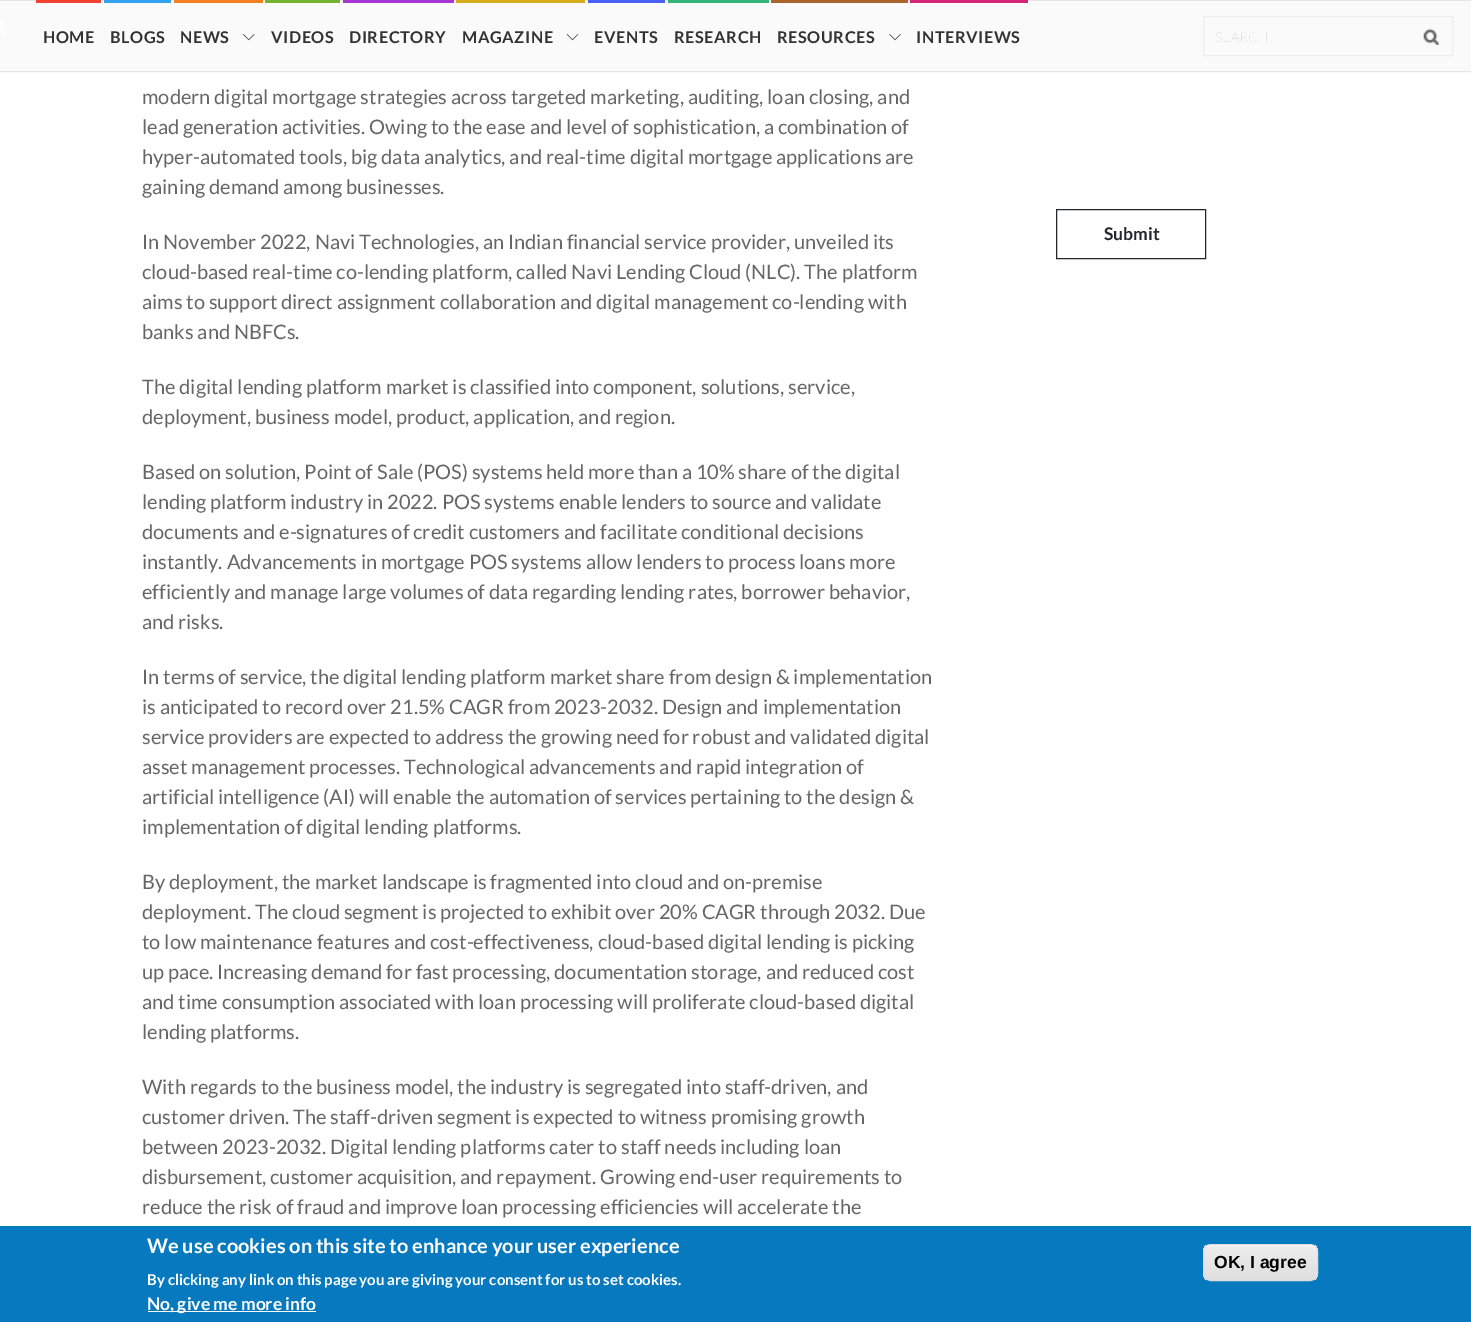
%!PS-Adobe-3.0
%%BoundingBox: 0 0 1471 1322
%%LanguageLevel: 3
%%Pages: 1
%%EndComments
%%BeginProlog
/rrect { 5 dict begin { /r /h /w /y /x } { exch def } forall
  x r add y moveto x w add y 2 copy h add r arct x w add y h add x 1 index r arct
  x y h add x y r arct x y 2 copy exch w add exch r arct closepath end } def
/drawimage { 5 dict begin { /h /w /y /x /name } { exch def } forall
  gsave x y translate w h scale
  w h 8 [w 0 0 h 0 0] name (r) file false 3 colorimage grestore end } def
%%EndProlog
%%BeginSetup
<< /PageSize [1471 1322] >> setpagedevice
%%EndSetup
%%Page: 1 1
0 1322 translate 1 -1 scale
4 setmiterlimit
1 setgray
0 0 1471 1322 rectfill
0.98 setgray
0 1 1471 72 rectfill
0.906 setgray
0 0 1471 1 rectfill
0 71 1471 1 rectfill
0.945 0.255 0.2 setrgbcolor
36 0 65 3 rectfill
0.2 0.639 0.945 setrgbcolor
104 0 67 3 rectfill
0.961 0.502 0.129 setrgbcolor
174 0 89 3 rectfill
(images/1.raw) 243 34 12 7 drawimage
0.455 0.706 0.188 setrgbcolor
265 0 75 3 rectfill
0.667 0.208 0.839 setrgbcolor
343 0 111 3 rectfill
0.839 0.675 0.106 setrgbcolor
456 0 129 3 rectfill
(images/2.raw) 566 34 13 7 drawimage
0.298 0.376 0.965 setrgbcolor
588 0 77 3 rectfill
0.196 0.706 0.482 setrgbcolor
668 0 101 3 rectfill
0.671 0.388 0.18 setrgbcolor
771 0 137 3 rectfill
(images/3.raw) 889 34 12 7 drawimage
0.839 0.145 0.467 setrgbcolor
910 0 118 3 rectfill
(images/4.raw) 0 20 6 15 drawimage
(images/5.raw) 1423 28 16 17 drawimage
0.933 setgray
1203.5 16.5 249 39 rectstroke
0.141 0.145 0.184 setrgbcolor
1056.5 209.5 149 49 rectstroke
0.027 0.475 0.749 setrgbcolor
0 1226 1471 96 rectfill
1 setgray
148 1311 168 1 rectfill
gsave
1203 1244 115 37 8 rrect clip newpath
gsave newpath 1203 1245 moveto 1318 1245 lineto 1318 1280 lineto 1203 1280 lineto closepath clip newpath
<< /ShadingType 2 /ColorSpace /DeviceRGB /Coords [1260 1245 1260 1280] /Extend [true true] /Function << /FunctionType 3 /Domain [0 1] /Functions [<< /FunctionType 2 /Domain [0 1] /C0 [0.929 0.929 0.929] /C1 [0.929 0.929 0.929] /N 1 >> << /FunctionType 2 /Domain [0 1] /C0 [0.929 0.929 0.929] /C1 [0.875 0.875 0.875] /N 1 >>] /Bounds [0.05] /Encode [0 1 0 1] >> >> shfill grestore
grestore
newpath 1210 1246 moveto 1310 1246 lineto 1313 1246 1316 1249 1316 1252 curveto 1316 1241 1299 1245 1293 1245 curveto 1227 1245 lineto 1221 1245 1204 1241 1204 1252 curveto 1204 1249 1207 1246 1210 1246 curveto closepath fill
0.863 setgray
1203.5 1244.5 114 36 7.5 rrect stroke
/Lato-Bold [16.25 0 0 -16.25 0 0] selectfont
0.2 setgray
43 43 moveto 0.6 0 (HOME) ashow
110 43 moveto 0.6 0 (BLOGS) ashow
180 43 moveto 0.6 0 (NEWS) ashow
271 43 moveto 0.6 0 (VIDEOS) ashow
349 43 moveto 0.6 0 (DIRECTORY) ashow
462 43 moveto 0.6 0 (MAGAZINE) ashow
594 43 moveto 0.6 0 (EVENTS) ashow
674 43 moveto 0.6 0 (RESEARCH) ashow
777 43 moveto 0.6 0 (RESOURCES) ashow
916 43 moveto 0.6 0 (INTERVIEWS) ashow
/Lato-Thin [14 0 0 -14 0 0] selectfont
0.667 setgray
1215 42 moveto (SEARCH) show
/Lato-Regular [20 0 0 -20 0 0] selectfont
0.4 setgray
142 104 moveto (modern digital mortgage strategies across targeted marketing, auditing, loan closing, and) show
142 134 moveto (lead generation activities. Owing to the ease and level of sophistication, a combination of) show
142 164 moveto (hyper-automated tools, big data analytics, and real-time digital mortgage applications are) show
142 194 moveto (gaining demand among businesses.) show
142 249 moveto (In November 2022, Navi Technologies, an Indian financial service provider, unveiled its) show
142 279 moveto (cloud-based real-time co-lending platform, called Navi Lending Cloud \(NLC\). The platform) show
142 309 moveto (aims to support direct assignment collaboration and digital management co-lending with) show
142 339 moveto (banks and NBFCs.) show
142 394 moveto (The digital lending platform market is classified into component, solutions, service,) show
142 424 moveto (deployment, business model, product, application, and region.) show
142 479 moveto (Based on solution, Point of Sale \(POS\) systems held more than a 10% share of the digital) show
142 509 moveto (lending platform industry in 2022. POS systems enable lenders to source and validate) show
142 539 moveto (documents and e-signatures of credit customers and facilitate conditional decisions) show
142 569 moveto (instantly. Advancements in mortgage POS systems allow lenders to process loans more) show
142 599 moveto (efficiently and manage large volumes of data regarding lending rates, borrower behavior,) show
142 629 moveto (and risks.) show
142 684 moveto (In terms of service, the digital lending platform market share from design & implementation) show
142 714 moveto (is anticipated to record over 21.5% CAGR from 2023-2032. Design and implementation) show
142 744 moveto (service providers are expected to address the growing need for robust and validated digital) show
142 774 moveto (asset management processes. Technological advancements and rapid integration of) show
142 804 moveto (artificial intelligence \(AI\) will enable the automation of services pertaining to the design &) show
142 834 moveto (implementation of digital lending platforms.) show
142 889 moveto (By deployment, the market landscape is fragmented into cloud and on-premise) show
142 919 moveto (deployment. The cloud segment is projected to exhibit over 20% CAGR through 2032. Due) show
142 949 moveto (to low maintenance features and cost-effectiveness, cloud-based digital lending is picking) show
142 979 moveto (up pace. Increasing demand for fast processing, documentation storage, and reduced cost) show
142 1009 moveto (and time consumption associated with loan processing will proliferate cloud-based digital) show
142 1039 moveto (lending platforms.) show
142 1094 moveto (With regards to the business model, the industry is segregated into staff-driven, and) show
142 1124 moveto (customer driven. The staff-driven segment is expected to witness promising growth) show
142 1154 moveto (between 2023-2032. Digital lending platforms cater to staff needs including loan) show
142 1184 moveto (disbursement, customer acquisition, and repayment. Growing end-user requirements to) show
142 1214 moveto (reduce the risk of fraud and improve loan processing efficiencies will accelerate the) show
/Lato-Bold [17.5 0 0 -17.5 0 0] selectfont
0.141 0.145 0.184 setrgbcolor
1104 240 moveto (Submit) show
/Lato-Bold [20 0 0 -20 0 0] selectfont
1 setgray
147 1253 moveto (We use cookies on this site to enhance your user experience) show
/Lato-Bold [15 0 0 -15 0 0] selectfont
147 1285 moveto (By clicking any link on this page you are giving your consent for us to set cookies.) show
/Lato-Bold [17.5 0 0 -17.5 0 0] selectfont
147 1310 moveto (No, give me more info) show
/LiberationSans-Bold [17.5 0 0 -17.5 0 0] selectfont
0 setgray
1214 1268 moveto (OK, I agree) show
showpage
%%EOF
